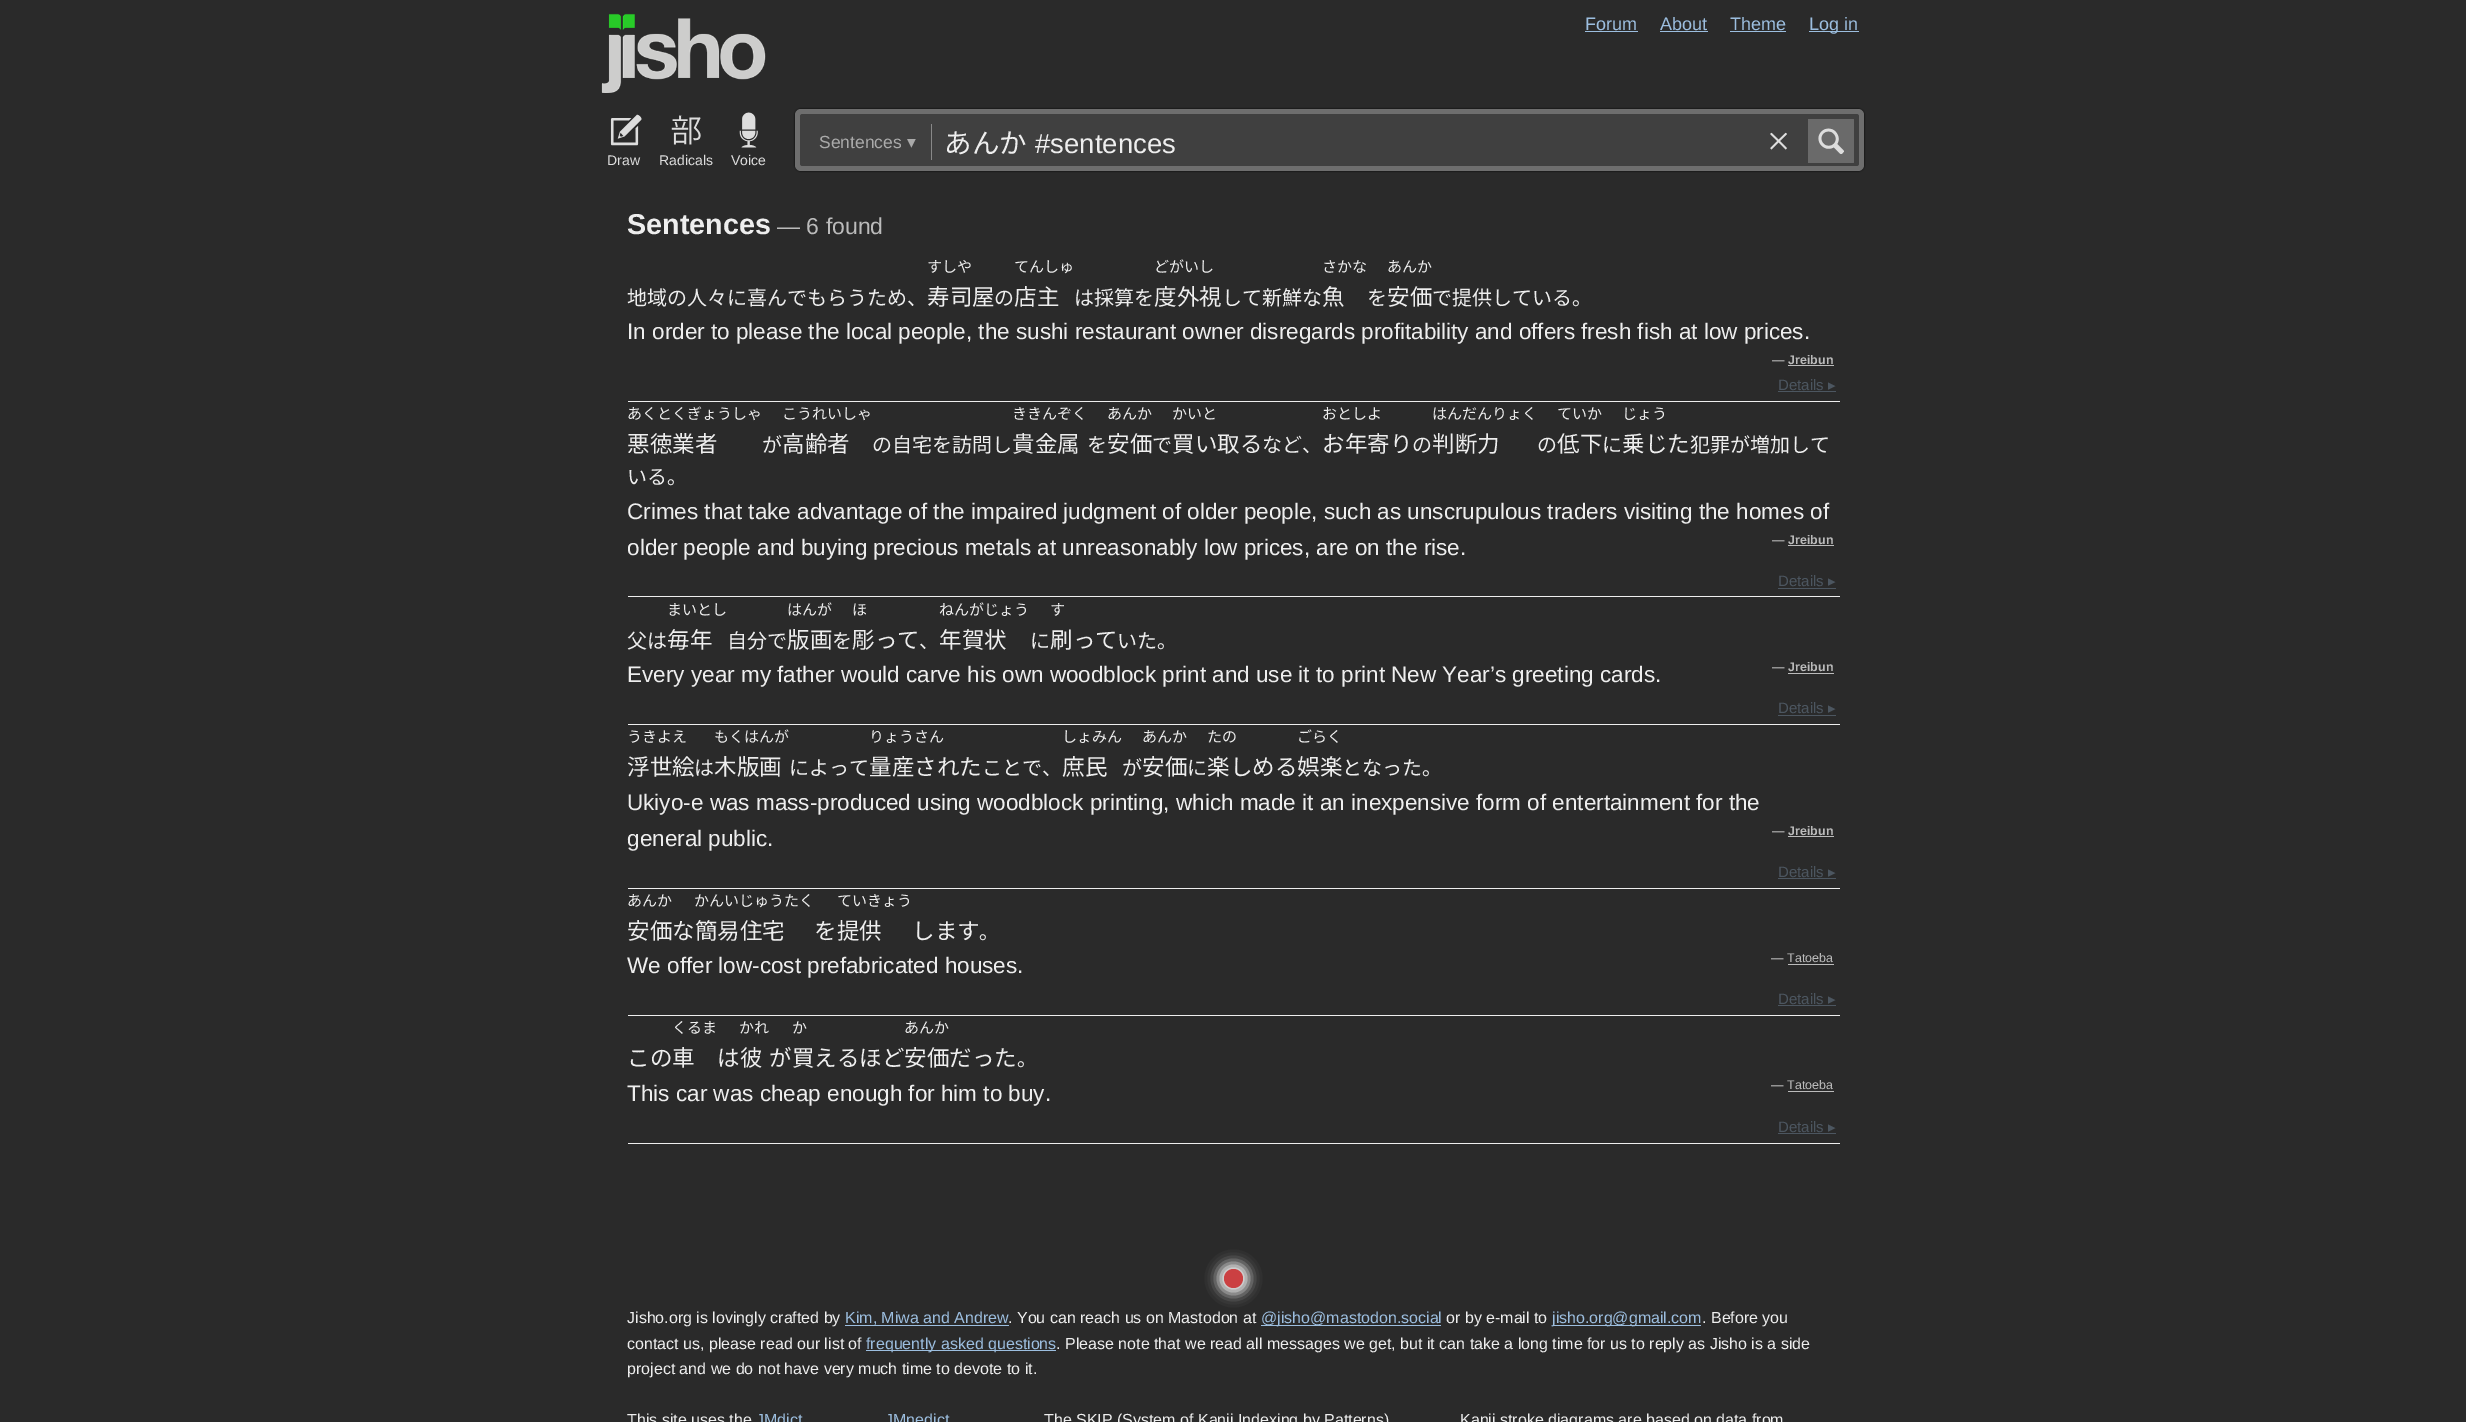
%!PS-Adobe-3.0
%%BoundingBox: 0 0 2466 1422
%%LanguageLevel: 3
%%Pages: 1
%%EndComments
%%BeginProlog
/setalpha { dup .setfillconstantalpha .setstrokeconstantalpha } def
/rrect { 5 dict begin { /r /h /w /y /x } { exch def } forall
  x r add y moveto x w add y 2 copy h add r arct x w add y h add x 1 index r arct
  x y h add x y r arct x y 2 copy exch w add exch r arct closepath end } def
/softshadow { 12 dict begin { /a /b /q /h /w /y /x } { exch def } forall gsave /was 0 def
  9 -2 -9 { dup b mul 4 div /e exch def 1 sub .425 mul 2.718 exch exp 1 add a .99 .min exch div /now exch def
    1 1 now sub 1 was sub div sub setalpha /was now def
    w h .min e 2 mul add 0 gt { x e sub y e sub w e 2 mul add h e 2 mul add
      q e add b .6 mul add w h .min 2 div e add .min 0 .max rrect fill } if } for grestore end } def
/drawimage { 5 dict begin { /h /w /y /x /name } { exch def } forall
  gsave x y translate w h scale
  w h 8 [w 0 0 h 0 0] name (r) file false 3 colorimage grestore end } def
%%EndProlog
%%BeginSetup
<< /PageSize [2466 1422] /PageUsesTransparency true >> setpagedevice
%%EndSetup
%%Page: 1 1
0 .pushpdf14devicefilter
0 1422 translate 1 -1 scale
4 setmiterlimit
0.165 setgray
0 0 2466 1422 rectfill
(images/1.raw) 601 13 165 80 drawimage
0.612 0.745 0.875 setrgbcolor
1585 31 53 1 rectfill
1660 31 48 1 rectfill
1730 31 56 1 rectfill
1809 31 50 1 rectfill
0 setgray
795 109 1069 62 6 1 1 softshadow
0.431 setgray
795 109 1069 62 6 rrect fill
0.251 setgray
800 114 1059 52 2.5 rrect fill
0.533 setgray
931 124 1 36 rectfill
(images/2.raw) 1770 132 17 18 drawimage
0.416 setgray
newpath 1808 119 moveto 1853 119 lineto 1853.5 119 1854 119.5 1854 120 curveto 1854 162 lineto 1854 162.5 1853.5 163 1853 163 curveto 1808 163 lineto closepath fill
(images/3.raw) 1818 128 26 26 drawimage
(images/4.raw) 610 114 32 32 drawimage
(images/5.raw) 671 115 30 30 drawimage
(images/6.raw) 739 112 19 36 drawimage
0.933 setgray
628 401 1212 1 rectfill
0.733 setgray
1788 365 46 1 rectfill
0.298 0.337 0.376 setrgbcolor
1778 391 58 1 rectfill
0.933 setgray
628 596 1212 1 rectfill
0.733 setgray
1788 545 46 1 rectfill
0.298 0.337 0.376 setrgbcolor
1778 588 58 1 rectfill
0.933 setgray
628 724 1212 1 rectfill
0.733 setgray
1788 673 46 1 rectfill
0.298 0.337 0.376 setrgbcolor
1778 715 58 1 rectfill
0.933 setgray
628 888 1212 1 rectfill
0.733 setgray
1788 836 46 1 rectfill
0.298 0.337 0.376 setrgbcolor
1778 878 58 1 rectfill
0.933 setgray
628 1015 1212 1 rectfill
0.733 setgray
1788 964 46 1 rectfill
0.298 0.337 0.376 setrgbcolor
1778 1005 58 1 rectfill
0.933 setgray
628 1143 1212 1 rectfill
0.733 setgray
1788 1091 46 1 rectfill
0.298 0.337 0.376 setrgbcolor
1778 1133 58 1 rectfill
1 setgray
1218 1263 31 31 15.5 6 0.9 softshadow
0.796 0.251 0.259 setrgbcolor
newpath 1233.5 1278.5 9.5 0 360 arc closepath fill
0.612 0.745 0.875 setrgbcolor
845 1325 164 1 rectfill
1261 1325 180 1 rectfill
1553 1325 148 1 rectfill
866 1350 190 1 rectfill
/LiberationSans-Regular [18 0 0 -18 0 0] selectfont
1585 30 moveto (Forum) show
1660 30 moveto (About) show
1730 30 moveto (Theme) show
1809 30 moveto (Log in) show
/LiberationSans-Regular [17.5 0 0 -17.5 0 0] selectfont
0.667 setgray
819 148 moveto (Sentences) show
/DejaVuSans-Regular [17.5 0 0 -17.5 0 0] selectfont
907 148 moveto (▾) show
/NotoSansCJKJP-Regular [27.5 0 0 -27.5 0 0] selectfont
0.933 setgray
944 153 moveto (あんか) show
/LiberationSans-Regular [27.5 0 0 -27.5 0 0] selectfont
1035 153 moveto (#sentences) show
/LiberationSans-Regular [14 0 0 -14 0 0] selectfont
0.867 setgray
607 165 moveto (Draw) show
659 165 moveto (Radicals) show
731 165 moveto (Voice) show
/LiberationSans-Bold [28.75 0 0 -28.75 0 0] selectfont
0.933 setgray
627 234 moveto (Sentences) show
/LiberationSans-Regular [23 0 0 -23 0 0] selectfont
0.733 setgray
777 234 moveto (— 6 found) show
/NotoSansCJKJP-Regular [20 0 0 -20 0 0] selectfont
0.933 setgray
627 305 moveto (地域の人々に喜んでもらうため、) show
/NotoSansCJKJP-Regular [15 0 0 -15 0 0] selectfont
927 272 moveto (すしや) show
/NotoSansCJKJP-Regular [22.5 0 0 -22.5 0 0] selectfont
927 305 moveto (寿司屋) show
/NotoSansCJKJP-Regular [20 0 0 -20 0 0] selectfont
994 305 moveto (の) show
/NotoSansCJKJP-Regular [15 0 0 -15 0 0] selectfont
1014 272 moveto (てんしゅ) show
/NotoSansCJKJP-Regular [22.5 0 0 -22.5 0 0] selectfont
1014 305 moveto (店主) show
/NotoSansCJKJP-Regular [20 0 0 -20 0 0] selectfont
1074 305 moveto (は採算を) show
/NotoSansCJKJP-Regular [15 0 0 -15 0 0] selectfont
1154 272 moveto (どがいし) show
/NotoSansCJKJP-Regular [22.5 0 0 -22.5 0 0] selectfont
1154 305 moveto (度外視) show
/NotoSansCJKJP-Regular [20 0 0 -20 0 0] selectfont
1222 305 moveto (して新鮮な) show
/NotoSansCJKJP-Regular [15 0 0 -15 0 0] selectfont
1322 272 moveto (さかな) show
/NotoSansCJKJP-Regular [22.5 0 0 -22.5 0 0] selectfont
1322 305 moveto (魚) show
/NotoSansCJKJP-Regular [20 0 0 -20 0 0] selectfont
1367 305 moveto (を) show
/NotoSansCJKJP-Regular [15 0 0 -15 0 0] selectfont
1387 272 moveto (あんか) show
/NotoSansCJKJP-Regular [22.5 0 0 -22.5 0 0] selectfont
1387 305 moveto (安価) show
/NotoSansCJKJP-Regular [20 0 0 -20 0 0] selectfont
1432 305 moveto (で提供している。) show
/LiberationSans-Regular [22.5 0 0 -22.5 0 0] selectfont
627 339 moveto (In order to please the local people, the sushi restaurant owner disregards profitability and offers fresh fish at low prices.) show
/LiberationSans-Regular [12.5 0 0 -12.5 0 0] selectfont
1772 364 moveto (—) show
/LiberationSans-Bold [12.5 0 0 -12.5 0 0] selectfont
0.733 setgray
1788 364 moveto (Jreibun) show
/LiberationSans-Regular [15 0 0 -15 0 0] selectfont
0.298 0.337 0.376 setrgbcolor
1778 390 moveto (Details) show
/DejaVuSans-Regular [15 0 0 -15 0 0] selectfont
1828 390 moveto (▸) show
/NotoSansCJKJP-Regular [15 0 0 -15 0 0] selectfont
0.933 setgray
627 419 moveto (あくとくぎょうしゃ) show
/NotoSansCJKJP-Regular [22.5 0 0 -22.5 0 0] selectfont
627 452 moveto (悪徳業者) show
/NotoSansCJKJP-Regular [20 0 0 -20 0 0] selectfont
762 452 moveto (が) show
/NotoSansCJKJP-Regular [15 0 0 -15 0 0] selectfont
782 419 moveto (こうれいしゃ) show
/NotoSansCJKJP-Regular [22.5 0 0 -22.5 0 0] selectfont
782 452 moveto (高齢者) show
/NotoSansCJKJP-Regular [20 0 0 -20 0 0] selectfont
872 452 moveto (の自宅を訪問し) show
/NotoSansCJKJP-Regular [15 0 0 -15 0 0] selectfont
1012 419 moveto (ききんぞく) show
/NotoSansCJKJP-Regular [22.5 0 0 -22.5 0 0] selectfont
1012 452 moveto (貴金属) show
/NotoSansCJKJP-Regular [20 0 0 -20 0 0] selectfont
1087 452 moveto (を) show
/NotoSansCJKJP-Regular [15 0 0 -15 0 0] selectfont
1107 419 moveto (あんか) show
/NotoSansCJKJP-Regular [22.5 0 0 -22.5 0 0] selectfont
1107 452 moveto (安価) show
/NotoSansCJKJP-Regular [20 0 0 -20 0 0] selectfont
1152 452 moveto (で) show
/NotoSansCJKJP-Regular [15 0 0 -15 0 0] selectfont
1172 419 moveto (かいと) show
/NotoSansCJKJP-Regular [22.5 0 0 -22.5 0 0] selectfont
1172 452 moveto (買い取る) show
/NotoSansCJKJP-Regular [20 0 0 -20 0 0] selectfont
1262 452 moveto (など、) show
/NotoSansCJKJP-Regular [15 0 0 -15 0 0] selectfont
1322 419 moveto (おとしよ) show
/NotoSansCJKJP-Regular [22.5 0 0 -22.5 0 0] selectfont
1322 452 moveto (お年寄り) show
/NotoSansCJKJP-Regular [20 0 0 -20 0 0] selectfont
1412 452 moveto (の) show
/NotoSansCJKJP-Regular [15 0 0 -15 0 0] selectfont
1432 419 moveto (はんだんりょく) show
/NotoSansCJKJP-Regular [22.5 0 0 -22.5 0 0] selectfont
1432 452 moveto (判断力) show
/NotoSansCJKJP-Regular [20 0 0 -20 0 0] selectfont
1537 452 moveto (の) show
/NotoSansCJKJP-Regular [15 0 0 -15 0 0] selectfont
1557 419 moveto (ていか) show
/NotoSansCJKJP-Regular [22.5 0 0 -22.5 0 0] selectfont
1557 452 moveto (低下) show
/NotoSansCJKJP-Regular [20 0 0 -20 0 0] selectfont
1602 452 moveto (に) show
/NotoSansCJKJP-Regular [15 0 0 -15 0 0] selectfont
1622 419 moveto (じょう) show
/NotoSansCJKJP-Regular [22.5 0 0 -22.5 0 0] selectfont
1622 452 moveto (乗じた) show
/NotoSansCJKJP-Regular [20 0 0 -20 0 0] selectfont
1690 452 moveto (犯罪が増加して) show
627 484 moveto (いる。) show
/LiberationSans-Regular [22.5 0 0 -22.5 0 0] selectfont
627 519 moveto (Crimes that take advantage of the impaired judgment of older people, such as unscrupulous traders visiting the homes of) show
627 555 moveto (older people and buying precious metals at unreasonably low prices, are on the rise.) show
/LiberationSans-Regular [12.5 0 0 -12.5 0 0] selectfont
1772 544 moveto (—) show
/LiberationSans-Bold [12.5 0 0 -12.5 0 0] selectfont
0.733 setgray
1788 544 moveto (Jreibun) show
/LiberationSans-Regular [15 0 0 -15 0 0] selectfont
0.298 0.337 0.376 setrgbcolor
1778 586 moveto (Details) show
/DejaVuSans-Regular [15 0 0 -15 0 0] selectfont
1828 586 moveto (▸) show
/NotoSansCJKJP-Regular [20 0 0 -20 0 0] selectfont
0.933 setgray
627 648 moveto (父は) show
/NotoSansCJKJP-Regular [15 0 0 -15 0 0] selectfont
667 615 moveto (まいとし) show
/NotoSansCJKJP-Regular [22.5 0 0 -22.5 0 0] selectfont
667 648 moveto (毎年) show
/NotoSansCJKJP-Regular [20 0 0 -20 0 0] selectfont
727 648 moveto (自分で) show
/NotoSansCJKJP-Regular [15 0 0 -15 0 0] selectfont
787 615 moveto (はんが) show
/NotoSansCJKJP-Regular [22.5 0 0 -22.5 0 0] selectfont
787 648 moveto (版画) show
/NotoSansCJKJP-Regular [20 0 0 -20 0 0] selectfont
832 648 moveto (を) show
/NotoSansCJKJP-Regular [15 0 0 -15 0 0] selectfont
852 615 moveto (ほ) show
/NotoSansCJKJP-Regular [22.5 0 0 -22.5 0 0] selectfont
852 648 moveto (彫って) show
/NotoSansCJKJP-Regular [20 0 0 -20 0 0] selectfont
919 648 moveto (、) show
/NotoSansCJKJP-Regular [15 0 0 -15 0 0] selectfont
939 615 moveto (ねんがじょう) show
/NotoSansCJKJP-Regular [22.5 0 0 -22.5 0 0] selectfont
939 648 moveto (年賀状) show
/NotoSansCJKJP-Regular [20 0 0 -20 0 0] selectfont
1030 648 moveto (に) show
/NotoSansCJKJP-Regular [15 0 0 -15 0 0] selectfont
1050 615 moveto (す) show
/NotoSansCJKJP-Regular [22.5 0 0 -22.5 0 0] selectfont
1050 648 moveto (刷って) show
/NotoSansCJKJP-Regular [20 0 0 -20 0 0] selectfont
1117 648 moveto (いた。) show
/LiberationSans-Regular [22.5 0 0 -22.5 0 0] selectfont
627 682 moveto (Every year my father would carve his own woodblock print and use it to print New Year’s greeting cards.) show
/LiberationSans-Regular [12.5 0 0 -12.5 0 0] selectfont
1772 671 moveto (—) show
/LiberationSans-Bold [12.5 0 0 -12.5 0 0] selectfont
0.733 setgray
1788 671 moveto (Jreibun) show
/LiberationSans-Regular [15 0 0 -15 0 0] selectfont
0.298 0.337 0.376 setrgbcolor
1778 713 moveto (Details) show
/DejaVuSans-Regular [15 0 0 -15 0 0] selectfont
1828 713 moveto (▸) show
/NotoSansCJKJP-Regular [15 0 0 -15 0 0] selectfont
0.933 setgray
627 742 moveto (うきよえ) show
/NotoSansCJKJP-Regular [22.5 0 0 -22.5 0 0] selectfont
627 775 moveto (浮世絵) show
/NotoSansCJKJP-Regular [15 0 0 -15 0 0] selectfont
714 742 moveto (もくはんが) show
/NotoSansCJKJP-Regular [22.5 0 0 -22.5 0 0] selectfont
714 775 moveto (木版画) show
/NotoSansCJKJP-Regular [15 0 0 -15 0 0] selectfont
869 742 moveto (りょうさん) show
/NotoSansCJKJP-Regular [22.5 0 0 -22.5 0 0] selectfont
869 775 moveto (量産された) show
/NotoSansCJKJP-Regular [15 0 0 -15 0 0] selectfont
1062 742 moveto (しょみん) show
/NotoSansCJKJP-Regular [22.5 0 0 -22.5 0 0] selectfont
1062 775 moveto (庶民) show
/NotoSansCJKJP-Regular [15 0 0 -15 0 0] selectfont
1142 742 moveto (あんか) show
/NotoSansCJKJP-Regular [22.5 0 0 -22.5 0 0] selectfont
1142 775 moveto (安価) show
/NotoSansCJKJP-Regular [15 0 0 -15 0 0] selectfont
1297 742 moveto (ごらく) show
/NotoSansCJKJP-Regular [20 0 0 -20 0 0] selectfont
694 775 moveto (は) show
789 775 moveto (によって) show
982 775 moveto (ことで、) show
1122 775 moveto (が) show
1187 775 moveto (に) show
/NotoSansCJKJP-Regular [15 0 0 -15 0 0] selectfont
1207 742 moveto (たの) show
/NotoSansCJKJP-Regular [22.5 0 0 -22.5 0 0] selectfont
1207 775 moveto (楽しめる娯楽) show
/NotoSansCJKJP-Regular [20 0 0 -20 0 0] selectfont
1342 775 moveto (となった。) show
/LiberationSans-Regular [22.5 0 0 -22.5 0 0] selectfont
627 810 moveto (Ukiyo-e was mass-produced using woodblock printing, which made it an inexpensive form of entertainment for the) show
627 846 moveto (general public.) show
/LiberationSans-Regular [12.5 0 0 -12.5 0 0] selectfont
1772 835 moveto (—) show
/LiberationSans-Bold [12.5 0 0 -12.5 0 0] selectfont
0.733 setgray
1788 835 moveto (Jreibun) show
/LiberationSans-Regular [15 0 0 -15 0 0] selectfont
0.298 0.337 0.376 setrgbcolor
1778 877 moveto (Details) show
/DejaVuSans-Regular [15 0 0 -15 0 0] selectfont
1828 877 moveto (▸) show
/NotoSansCJKJP-Regular [15 0 0 -15 0 0] selectfont
0.933 setgray
694 906 moveto (かんいじゅうたく) show
627 906 moveto (あんか) show
/NotoSansCJKJP-Regular [22.5 0 0 -22.5 0 0] selectfont
627 939 moveto (安価な簡易住宅) show
/NotoSansCJKJP-Regular [15 0 0 -15 0 0] selectfont
837 906 moveto (ていきょう) show
/NotoSansCJKJP-Regular [22.5 0 0 -22.5 0 0] selectfont
814 939 moveto (を提供) show
912 939 moveto (します) show
/NotoSansCJKJP-Regular [20 0 0 -20 0 0] selectfont
979 939 moveto (。) show
/LiberationSans-Regular [22.5 0 0 -22.5 0 0] selectfont
627 973 moveto (We offer low-cost prefabricated houses.) show
/LiberationSans-Regular [12.5 0 0 -12.5 0 0] selectfont
1771 962 moveto (—) show
0.733 setgray
1787 962 moveto (Tatoeba) show
/LiberationSans-Regular [15 0 0 -15 0 0] selectfont
0.298 0.337 0.376 setrgbcolor
1778 1004 moveto (Details) show
/DejaVuSans-Regular [15 0 0 -15 0 0] selectfont
1828 1004 moveto (▸) show
/NotoSansCJKJP-Regular [15 0 0 -15 0 0] selectfont
0.933 setgray
672 1033 moveto (くるま) show
739 1033 moveto (かれ) show
792 1033 moveto (か) show
904 1033 moveto (あんか) show
/NotoSansCJKJP-Regular [22.5 0 0 -22.5 0 0] selectfont
627 1066 moveto (この車) show
717 1066 moveto (は彼) show
769 1066 moveto (が買えるほど安価だった) show
/NotoSansCJKJP-Regular [20 0 0 -20 0 0] selectfont
1017 1066 moveto (。) show
/LiberationSans-Regular [22.5 0 0 -22.5 0 0] selectfont
627 1101 moveto (This car was cheap enough for him to buy.) show
/LiberationSans-Regular [12.5 0 0 -12.5 0 0] selectfont
1771 1089 moveto (—) show
0.733 setgray
1787 1089 moveto (Tatoeba) show
/LiberationSans-Regular [15 0 0 -15 0 0] selectfont
0.298 0.337 0.376 setrgbcolor
1778 1132 moveto (Details) show
/DejaVuSans-Regular [15 0 0 -15 0 0] selectfont
1828 1132 moveto (▸) show
/LiberationSans-Regular [16 0 0 -16 0 0] selectfont
0.933 setgray
627 1323 moveto (Jisho.org is lovingly crafted by) show
0.612 0.745 0.875 setrgbcolor
845 1323 moveto (Kim, Miwa and Andrew) show
0.933 setgray
1008 1323 moveto (. You can reach us on Mastodon at) show
0.612 0.745 0.875 setrgbcolor
1261 1323 moveto (@jisho@mastodon.social) show
0.933 setgray
1446 1323 moveto (or by e-mail to) show
0.612 0.745 0.875 setrgbcolor
1552 1323 moveto (jisho.org@gmail.com) show
0.933 setgray
1702 1323 moveto (. Before you) show
627 1349 moveto (contact us, please read our list of) show
0.612 0.745 0.875 setrgbcolor
866 1349 moveto (frequently asked questions) show
0.933 setgray
1056 1349 moveto (. Please note that we read all messages we get, but it can take a long time for us to reply as Jisho is a side) show
627 1374 moveto (project and we do not have very much time to devote to it.) show
627 1425 moveto (This site uses the) show
0.612 0.745 0.875 setrgbcolor
756 1425 moveto (JMdict) show
885 1425 moveto (JMnedict) show
0.933 setgray
1044 1425 moveto (The SKIP \(System of Kanji Indexing by Patterns\)) show
1460 1425 moveto (Kanji stroke diagrams are based on data from) show
.poppdf14devicefilter showpage
%%EOF
